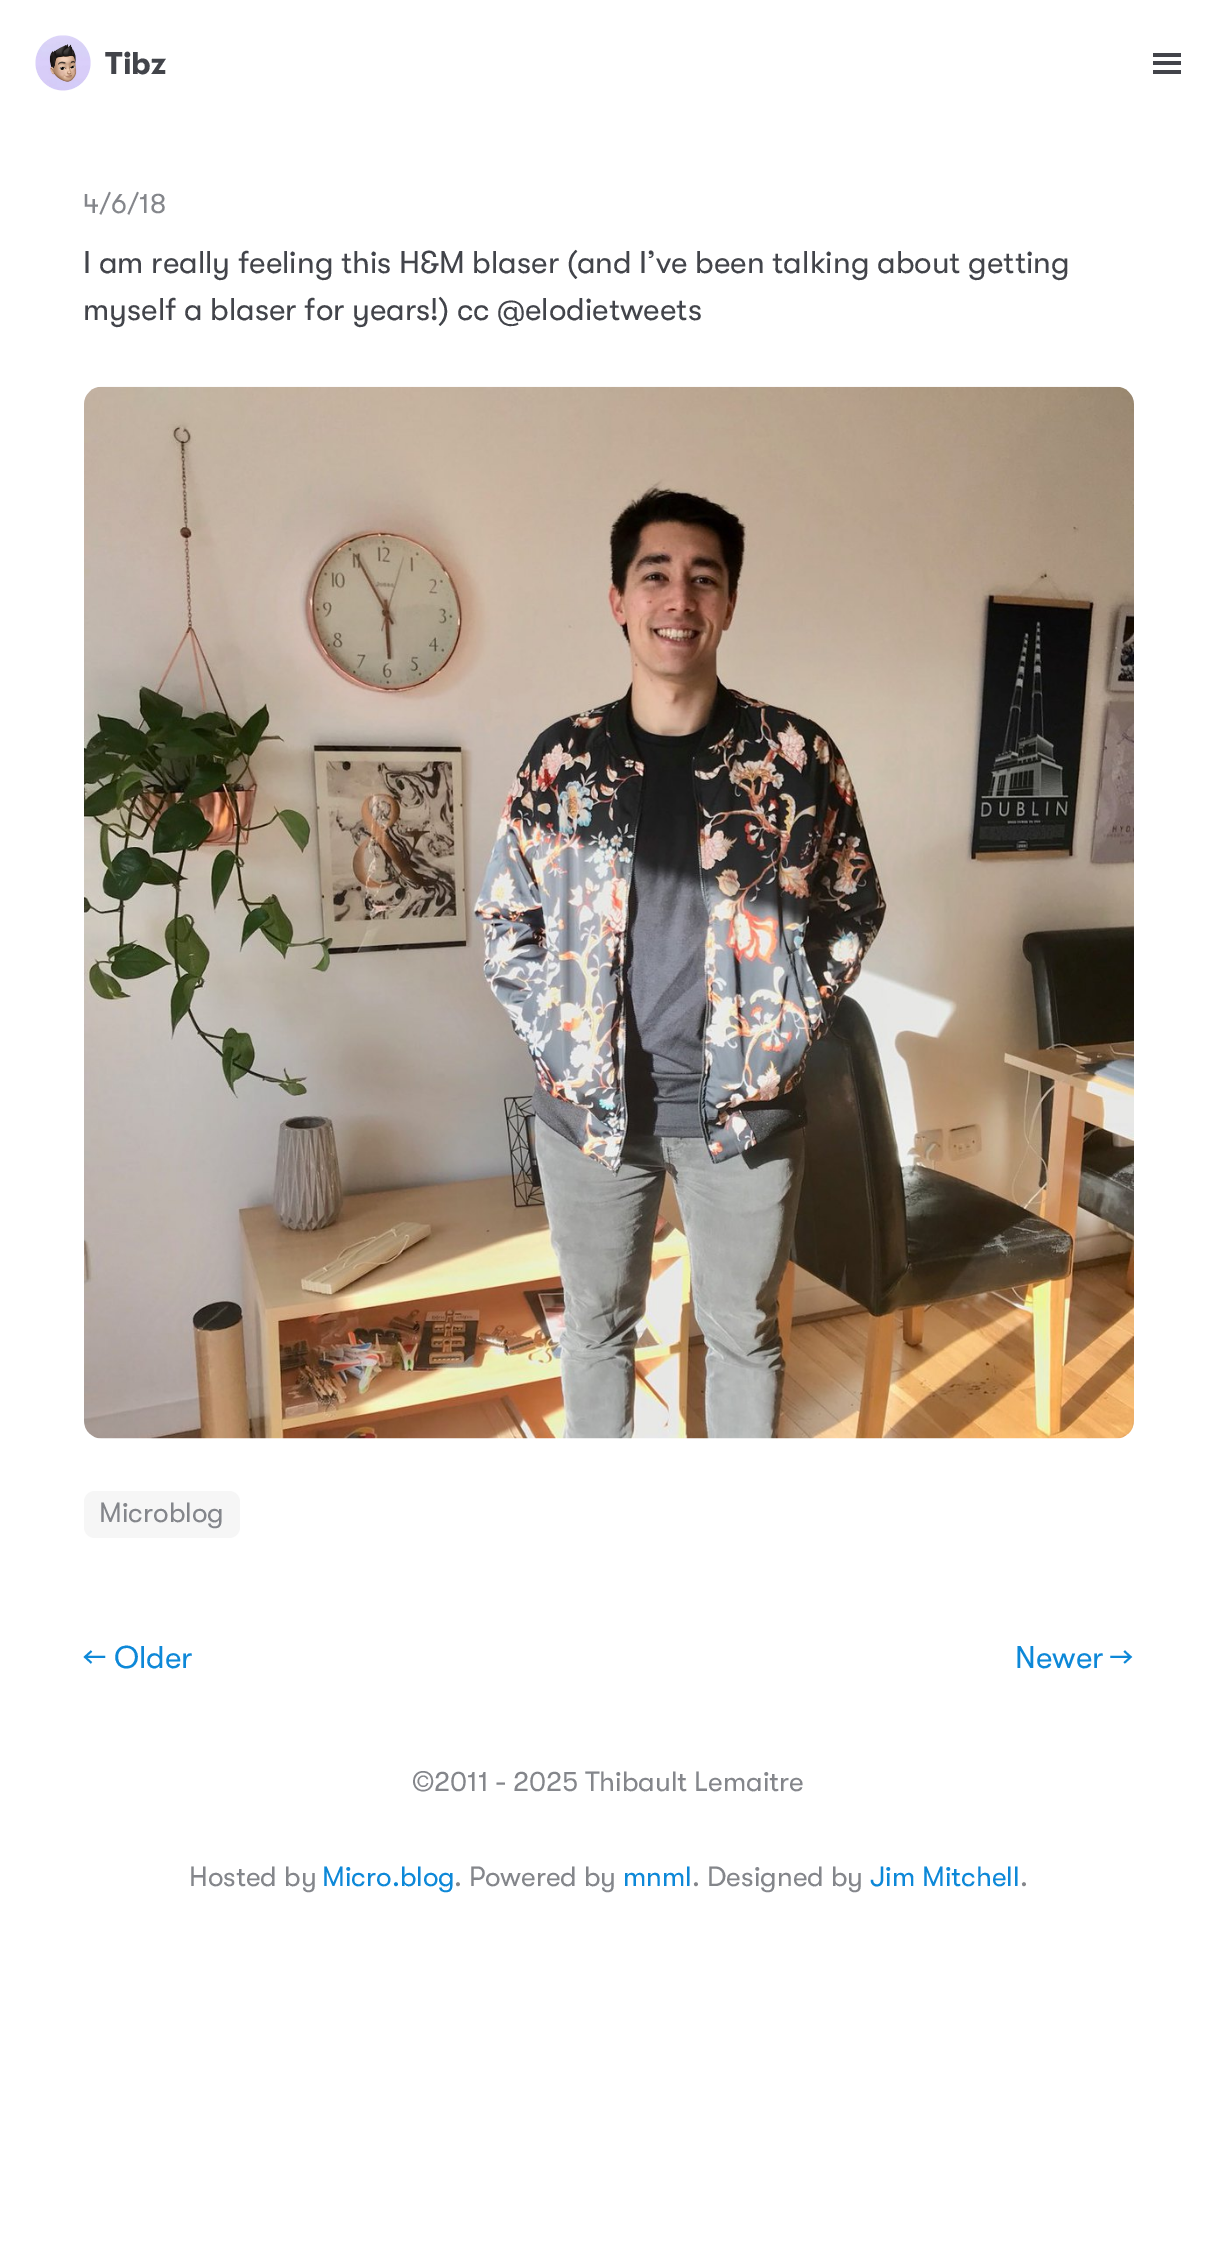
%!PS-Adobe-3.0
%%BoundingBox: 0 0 1215 2267
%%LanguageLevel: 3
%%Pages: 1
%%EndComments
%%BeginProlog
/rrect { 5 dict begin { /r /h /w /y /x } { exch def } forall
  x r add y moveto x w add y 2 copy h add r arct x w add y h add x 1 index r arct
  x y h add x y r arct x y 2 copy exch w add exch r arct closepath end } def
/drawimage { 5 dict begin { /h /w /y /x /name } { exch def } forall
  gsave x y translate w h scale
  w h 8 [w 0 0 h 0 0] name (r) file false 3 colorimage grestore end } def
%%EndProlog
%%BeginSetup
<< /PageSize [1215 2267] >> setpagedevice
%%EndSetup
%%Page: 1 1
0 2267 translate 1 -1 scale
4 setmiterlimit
1 setgray
0 0 1215 2267 rectfill
(images/1.raw) 35 35 56 56 drawimage
0.259 0.267 0.29 setrgbcolor
1153 53 28 4 rectfill
1153 61 28 4 rectfill
1153 70 28 4 rectfill
(images/2.raw) 84 386 1050 1053 drawimage
0.965 setgray
84 1491 156 47 11 rrect fill
/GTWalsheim-Bold [31.5 0 0 -31.5 0 0] selectfont
0.259 0.267 0.29 setrgbcolor
105 74 moveto (Tibz) show
/GTWalsheim-Regular [28 0 0 -28 0 0] selectfont
0.518 0.525 0.545 setrgbcolor
83 213 moveto (4/6/18) show
/GTWalsheim-Regular [31.5 0 0 -31.5 0 0] selectfont
0.259 0.267 0.29 setrgbcolor
83 273 moveto -0.25 0 32 (I am really feeling this H&M blaser \(and I’ve been talking about getting) widthshow
83 320 moveto -0.25 0 32 (myself a blaser for years!\) cc @elodietweets) widthshow
/GTWalsheim-Regular [28 0 0 -28 0 0] selectfont
0.518 0.525 0.545 setrgbcolor
99 1522 moveto (Microblog) show
/GTWalsheim-Regular [31.5 0 0 -31.5 0 0] selectfont
0.051 0.533 0.847 setrgbcolor
83 1668 moveto (← Older) show
1015 1668 moveto -1 0 32 (Newer →) widthshow
/GTWalsheim-Regular [28 0 0 -28 0 0] selectfont
0.518 0.525 0.545 setrgbcolor
412 1791 moveto -0.5 0 32 (©2011 - 2025 Thibault Lemaitre) widthshow
189 1886 moveto (Hosted by) show
0.051 0.533 0.847 setrgbcolor
322 1886 moveto (Micro.blog) show
0.518 0.525 0.545 setrgbcolor
454 1886 moveto -0.5 0 32 (. Powered by) widthshow
0.051 0.533 0.847 setrgbcolor
623 1886 moveto (mnml) show
0.518 0.525 0.545 setrgbcolor
692 1886 moveto (. Designed by) show
0.051 0.533 0.847 setrgbcolor
870 1886 moveto (Jim Mitchell) show
0.518 0.525 0.545 setrgbcolor
1020 1886 moveto (.) show
showpage
%%EOF
